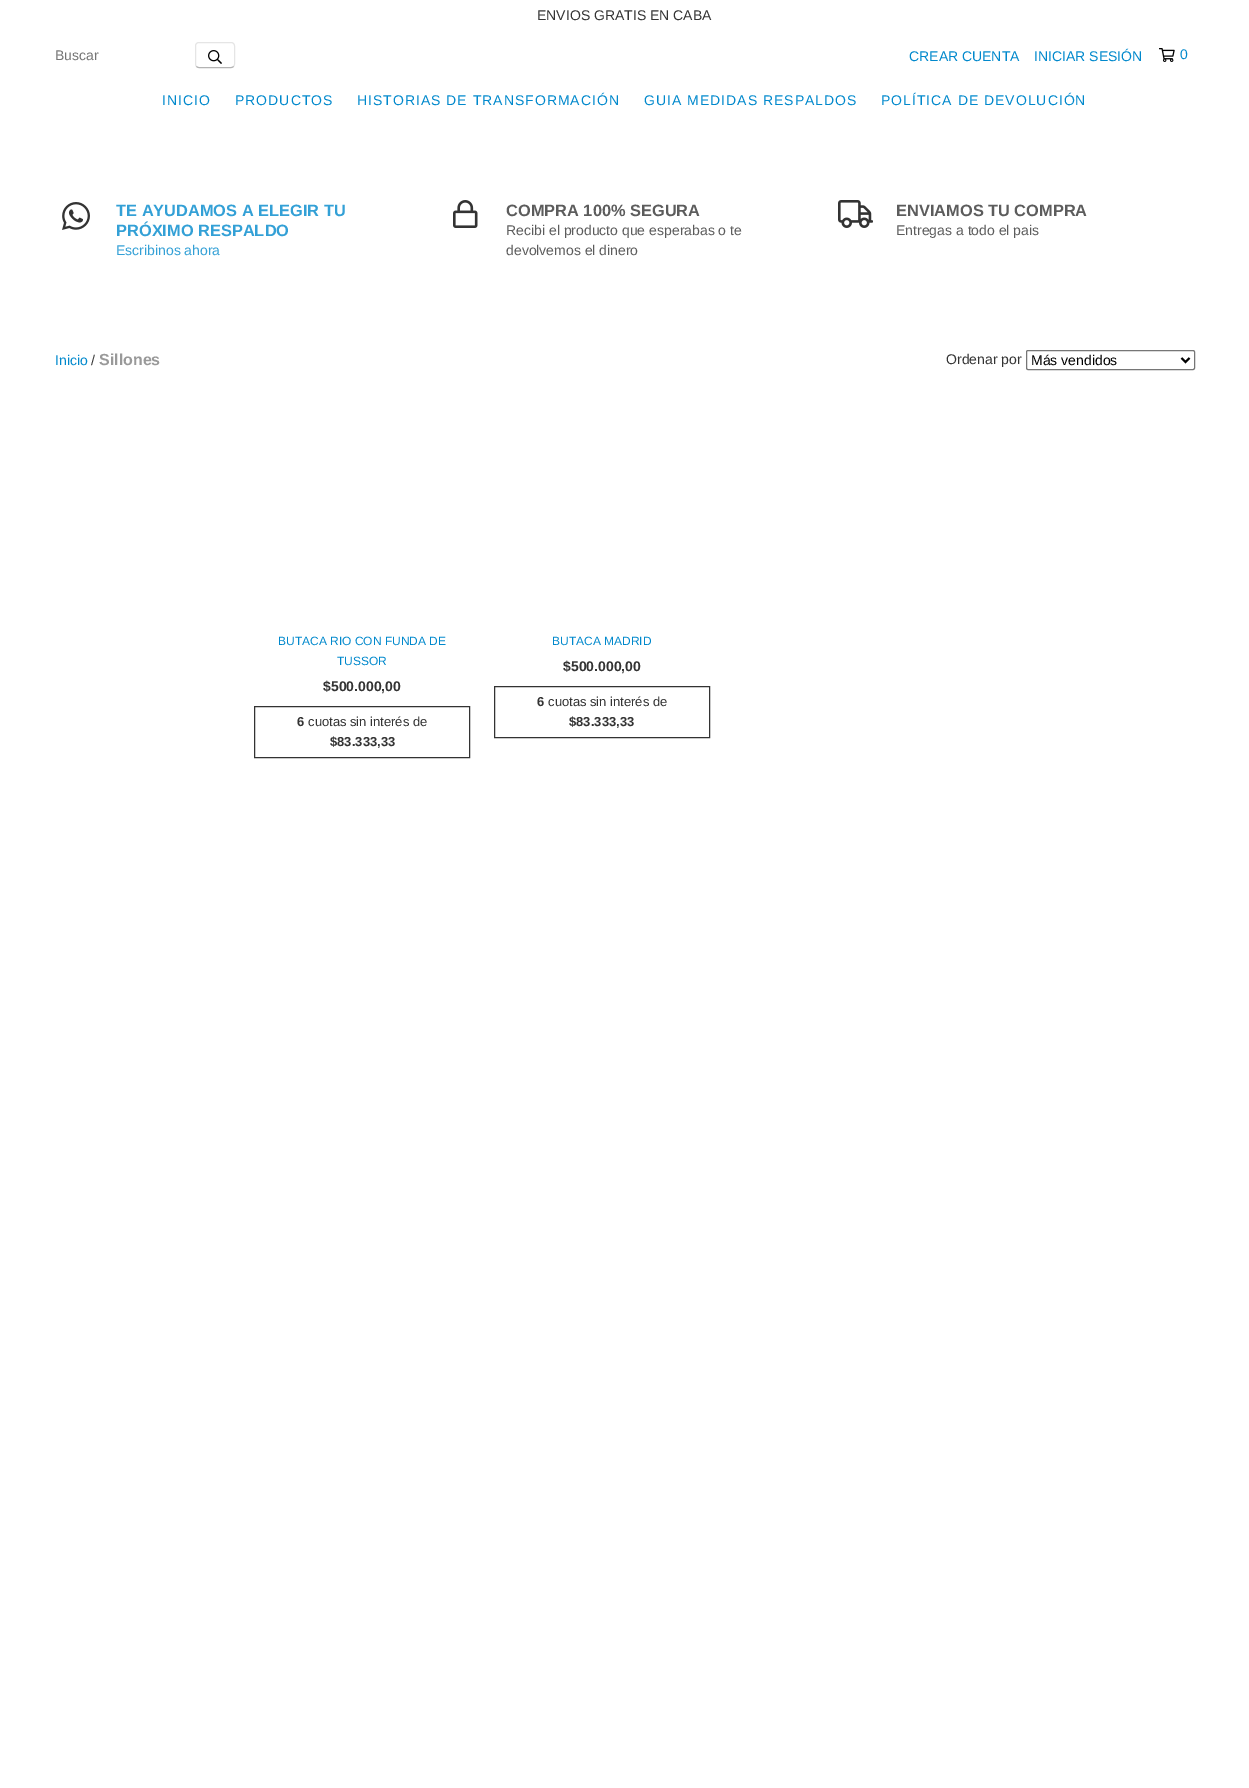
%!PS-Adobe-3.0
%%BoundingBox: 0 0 1249 1788
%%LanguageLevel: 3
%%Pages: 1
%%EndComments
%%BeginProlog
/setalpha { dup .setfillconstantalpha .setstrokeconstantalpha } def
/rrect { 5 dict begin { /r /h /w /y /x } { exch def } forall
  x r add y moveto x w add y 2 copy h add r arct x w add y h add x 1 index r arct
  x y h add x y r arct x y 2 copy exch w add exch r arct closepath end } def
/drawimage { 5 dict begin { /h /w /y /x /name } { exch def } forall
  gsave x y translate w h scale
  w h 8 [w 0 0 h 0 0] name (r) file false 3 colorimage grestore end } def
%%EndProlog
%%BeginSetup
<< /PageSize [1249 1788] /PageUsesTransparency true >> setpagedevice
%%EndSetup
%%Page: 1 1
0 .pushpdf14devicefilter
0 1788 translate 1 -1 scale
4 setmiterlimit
1 setgray
0 0 1249 1788 rectfill
0.702 setgray
newpath 233.5 66.5 moveto 233 67 232 67.5 231 67.5 curveto 199 67.5 lineto 198 67.5 197 67 196.5 66.5 curveto stroke
0.1 setalpha
0 setgray
newpath 196.5 66.5 moveto 196 66 195.5 65 195.5 64 curveto 195.5 46 lineto 195.5 45 196 44 196.5 43.5 curveto 197 43 198 42.5 199 42.5 curveto 231 42.5 lineto 232 42.5 233 43 233.5 43.5 curveto 234 44 234.5 45 234.5 46 curveto 234.5 64 lineto 234.5 65 234 66 233.5 66.5 curveto stroke
1 setalpha
(images/1.raw) 208 50 14 14 drawimage
(images/2.raw) 1159 48 16 14 drawimage
(images/3.raw) 62 202 28 28 drawimage
(images/4.raw) 453 200 25 28 drawimage
(images/5.raw) 838 200 35 28 drawimage
0.463 setgray
1026.5 350.5 168 19 1.5 rrect stroke
0 setgray
2 setlinewidth
newpath 1181.5 358 moveto 1185.5 362 lineto 1189.5 358 lineto stroke
0.2 setgray
1 setlinewidth
254.5 706.5 215 51 rectstroke
494.5 686.5 215 51 rectstroke
/LiberationSans-Regular [14 0 0 -14 0 0] selectfont
537 20 moveto (ENVIOS GRATIS EN CABA) show
0.459 setgray
55 60 moveto (Buscar) show
0 0.533 0.8 setrgbcolor
909 61 moveto (CREAR CUENTA) show
1034 61 moveto (INICIAR SESIÓN) show
1180 59 moveto 1 0 (0) ashow
162 105 moveto 1 0 (INICIO) ashow
235 105 moveto 1 0 (PRODUCTOS) ashow
357 105 moveto 1 0 (HISTORIAS DE TRANSFORMACIÓN) ashow
644 105 moveto 1 0 (GUIA MEDIDAS RESPALDOS) ashow
881 105 moveto 1 0 (POLÍTICA DE DEVOLUCIÓN) ashow
/LiberationSans-Bold [16.4 0 0 -16.4 0 0] selectfont
0.2 0.627 0.839 setrgbcolor
116 216 moveto (TE AYUDAMOS A ELEGIR TU) show
116 236 moveto (PRÓXIMO RESPALDO) show
/LiberationSans-Regular [14 0 0 -14 0 0] selectfont
116 255 moveto (Escribinos ahora) show
/LiberationSans-Bold [16.4 0 0 -16.4 0 0] selectfont
0.361 setgray
506 216 moveto (COMPRA 100% SEGURA) show
/LiberationSans-Regular [14 0 0 -14 0 0] selectfont
506 235 moveto (Recibi el producto que esperabas o te) show
506 255 moveto (devolvemos el dinero) show
/LiberationSans-Bold [16.4 0 0 -16.4 0 0] selectfont
896 216 moveto (ENVIAMOS TU COMPRA) show
/LiberationSans-Regular [14 0 0 -14 0 0] selectfont
896 235 moveto (Entregas a todo el pais) show
0 0.533 0.8 setrgbcolor
55 365 moveto (Inicio) show
0.2 setgray
91 365 moveto (/) show
/LiberationSans-Bold [16 0 0 -16 0 0] selectfont
0.6 setgray
99 365 moveto (Sillones) show
/LiberationSans-Regular [14 0 0 -14 0 0] selectfont
0.2 setgray
946 364 moveto (Ordenar por) show
0 setgray
1031 365 moveto (Más vendidos) show
/LiberationSans-Regular [12 0 0 -12 0 0] selectfont
0 0.533 0.8 setrgbcolor
278 645 moveto (BUTACA RIO CON FUNDA DE) show
337 665 moveto (TUSSOR) show
/LiberationSans-Bold [14 0 0 -14 0 0] selectfont
0.2 setgray
323 691 moveto ($500.000,00) show
/LiberationSans-Bold [13 0 0 -13 0 0] selectfont
297 726 moveto (6) show
/LiberationSans-Regular [13 0 0 -13 0 0] selectfont
308 726 moveto (cuotas sin interés de) show
/LiberationSans-Bold [13 0 0 -13 0 0] selectfont
330 746 moveto ($83.333,33) show
/LiberationSans-Regular [12 0 0 -12 0 0] selectfont
0 0.533 0.8 setrgbcolor
552 645 moveto (BUTACA MADRID) show
/LiberationSans-Bold [14 0 0 -14 0 0] selectfont
0.2 setgray
563 671 moveto ($500.000,00) show
/LiberationSans-Bold [13 0 0 -13 0 0] selectfont
537 706 moveto (6) show
/LiberationSans-Regular [13 0 0 -13 0 0] selectfont
548 706 moveto (cuotas sin interés de) show
/LiberationSans-Bold [13 0 0 -13 0 0] selectfont
569 726 moveto ($83.333,33) show
.poppdf14devicefilter showpage
%%EOF
